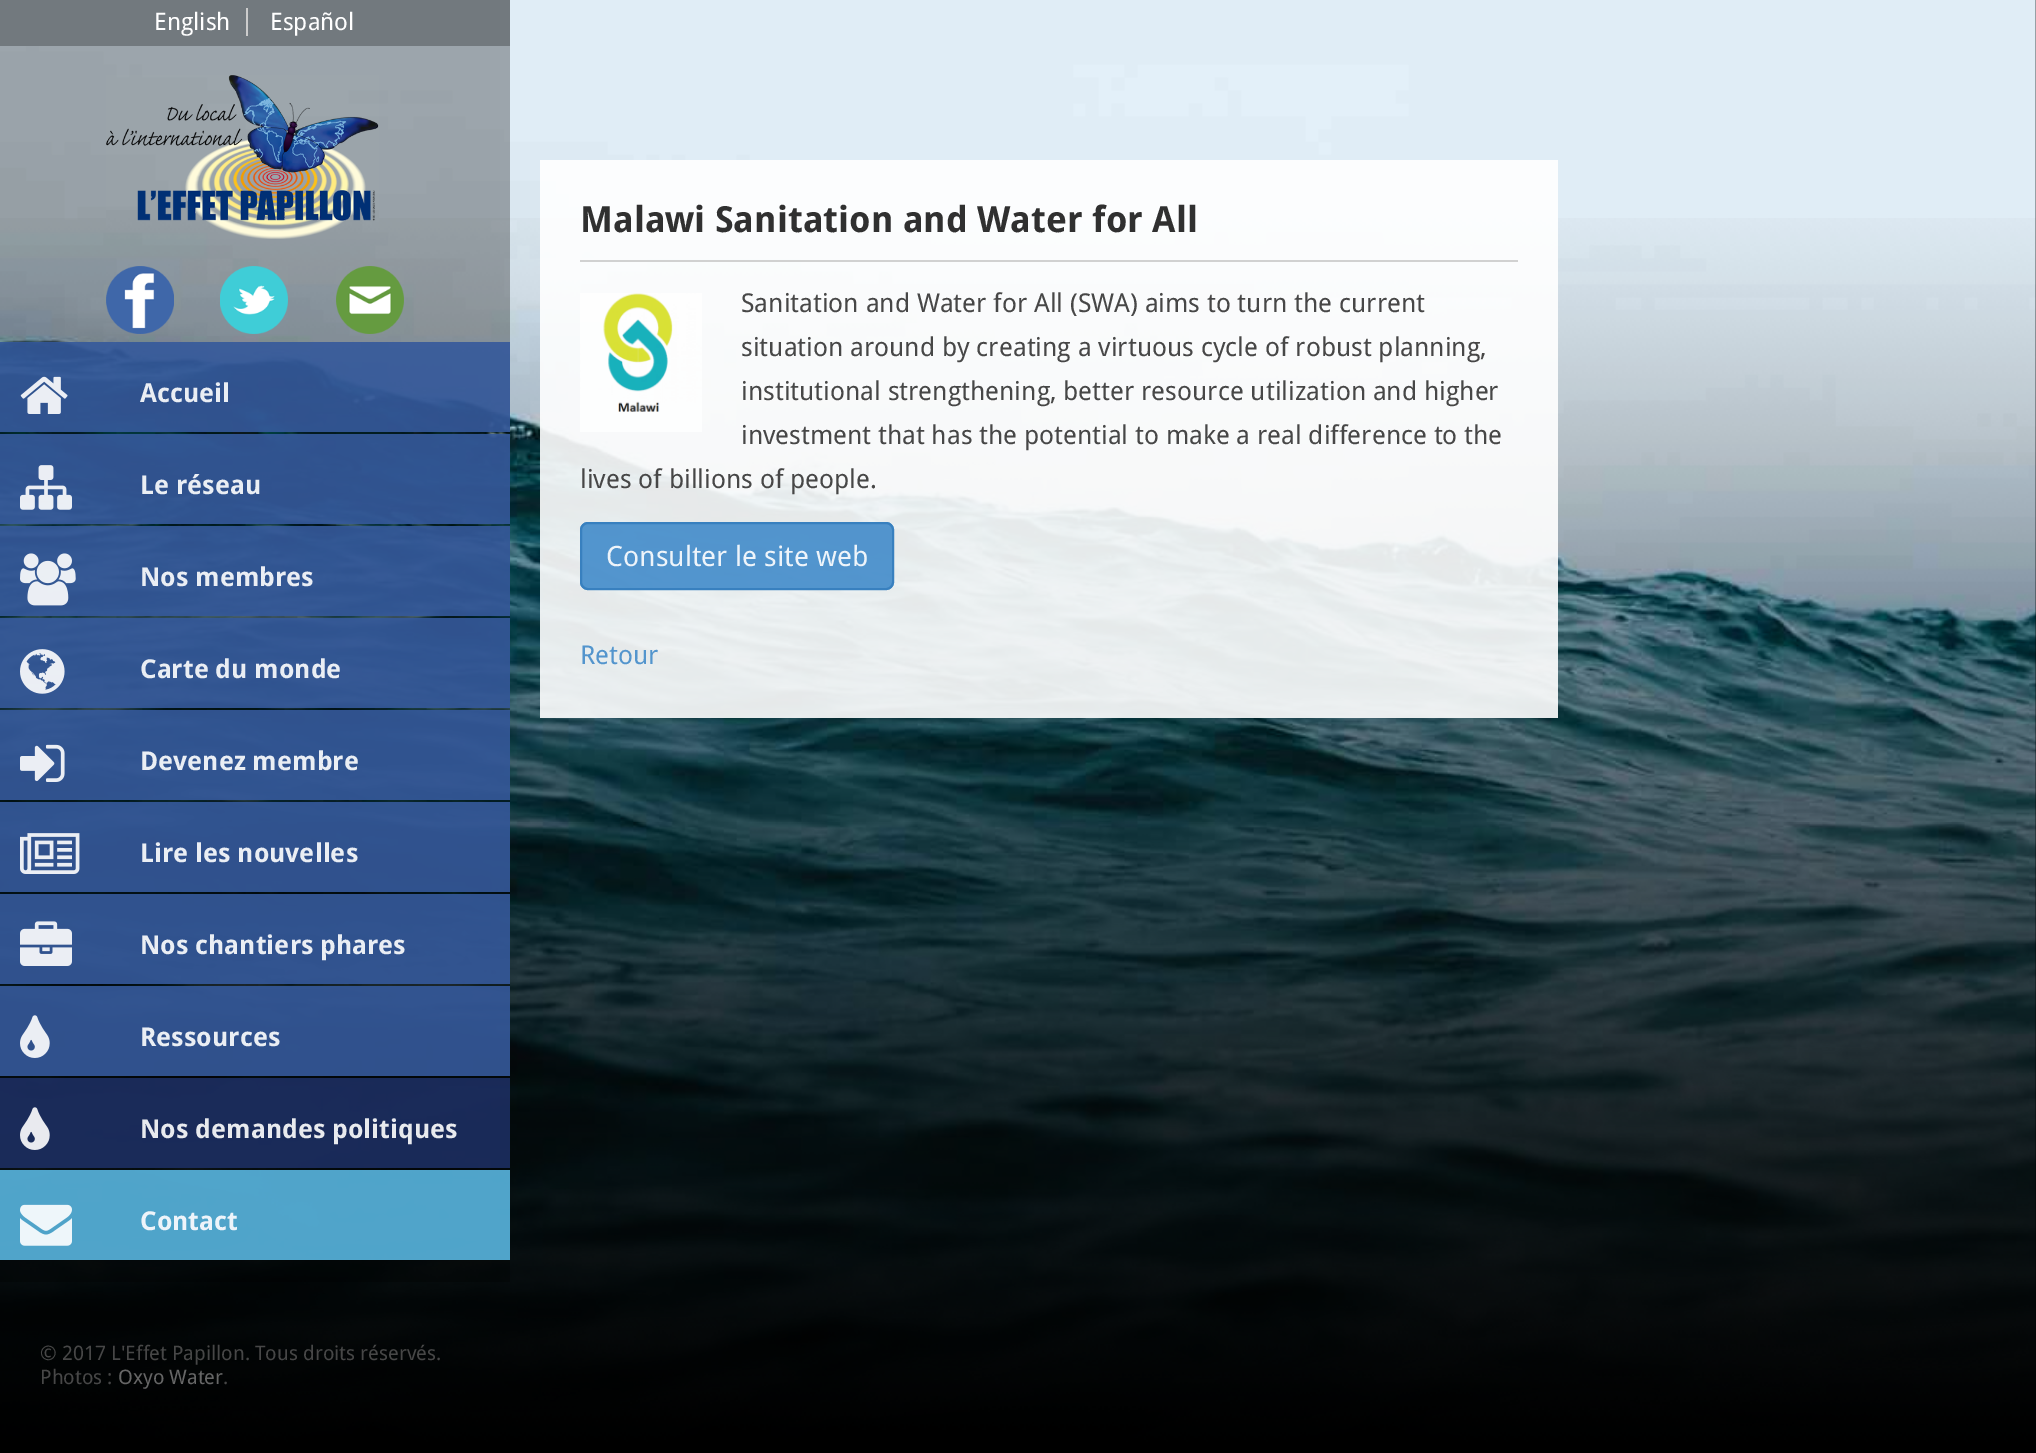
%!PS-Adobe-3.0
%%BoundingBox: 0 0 2036 1453
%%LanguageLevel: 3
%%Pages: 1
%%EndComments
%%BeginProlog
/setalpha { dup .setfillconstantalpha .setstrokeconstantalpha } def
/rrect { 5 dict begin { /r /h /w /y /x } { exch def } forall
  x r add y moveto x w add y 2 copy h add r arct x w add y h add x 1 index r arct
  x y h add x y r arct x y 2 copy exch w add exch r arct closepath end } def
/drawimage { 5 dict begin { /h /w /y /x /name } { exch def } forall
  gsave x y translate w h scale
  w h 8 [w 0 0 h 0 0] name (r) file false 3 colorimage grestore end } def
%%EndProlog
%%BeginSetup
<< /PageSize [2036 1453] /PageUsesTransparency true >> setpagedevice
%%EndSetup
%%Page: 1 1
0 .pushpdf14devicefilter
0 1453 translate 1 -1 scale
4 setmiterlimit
0 setgray
0 0 2036 1453 rectfill
(images/1.raw) 0 0 2036 1430 drawimage
(images/17.raw) 0 218 2036 1235 drawimage
0.3 setalpha
0 46 510 1236 rectfill
1 setalpha
0.447 0.475 0.494 setrgbcolor
0 0 510 46 rectfill
0.8 setgray
246 8 2 28 rectfill
(images/2.raw) 106 75 273 164 drawimage
(images/3.raw) 106 266 68 68 drawimage
(images/4.raw) 220 266 68 68 drawimage
(images/5.raw) 336 266 68 68 drawimage
0.9 setalpha
0.208 0.349 0.608 setrgbcolor
0 342 510 90 rectfill
1 setalpha
(images/6.raw) 20 376 48 38 drawimage
0.9 setalpha
0 434 510 90 rectfill
1 setalpha
(images/7.raw) 20 465 52 45 drawimage
0.9 setalpha
0 526 510 90 rectfill
1 setalpha
(images/8.raw) 20 553 56 53 drawimage
0.9 setalpha
0 618 510 90 rectfill
1 setalpha
(images/9.raw) 20 649 45 45 drawimage
0.9 setalpha
0 710 510 90 rectfill
1 setalpha
(images/10.raw) 20 744 45 38 drawimage
0.9 setalpha
0 802 510 90 rectfill
1 setalpha
(images/11.raw) 20 833 60 41 drawimage
0.9 setalpha
0 894 510 90 rectfill
1 setalpha
(images/12.raw) 20 921 52 45 drawimage
0.9 setalpha
0 986 510 90 rectfill
1 setalpha
(images/13.raw) 20 1015 30 43 drawimage
0.9 setalpha
0.11 0.18 0.38 setrgbcolor
0 1078 510 90 rectfill
1 setalpha
(images/14.raw) 20 1107 30 43 drawimage
0.9 setalpha
0.345 0.71 0.875 setrgbcolor
0 1170 510 90 rectfill
1 setalpha
(images/15.raw) 20 1204 52 42 drawimage
0.9 setalpha
1 setgray
540 160 1018 558 rectfill
1 setalpha
0.82 setgray
580 260 938 2 rectfill
(images/16.raw) 580 293 122 139 drawimage
0.9 setalpha
0.259 0.545 0.792 setrgbcolor
580 522 314 68 8 rrect fill
0.208 0.494 0.741 setrgbcolor
2 setlinewidth
581 523 312 66 7 rrect stroke
/DroidSans-Regular [24 0 0 -24 0 0] selectfont
1 setalpha
1 setgray
154 30 moveto (English) show
270 30 moveto (Español) show
/DroidSans-Bold [26 0 0 -26 0 0] selectfont
0.918 0.933 0.957 setrgbcolor
140 402 moveto (Accueil) show
140 494 moveto (Le réseau) show
140 586 moveto (Nos membres) show
140 678 moveto (Carte du monde) show
140 770 moveto (Devenez membre) show
140 862 moveto (Lire les nouvelles) show
140 954 moveto (Nos chantiers phares) show
140 1046 moveto (Ressources) show
0.91 0.918 0.933 setrgbcolor
140 1138 moveto (Nos demandes politiques) show
0.933 0.957 0.98 setrgbcolor
140 1230 moveto (Contact) show
/DroidSans-Regular [20 0 0 -20 0 0] selectfont
0.278 setgray
40 1360 moveto (© 2017 L'Effet Papillon. Tous droits réservés.) show
40 1384 moveto (Photos :) show
0.4 setgray
118 1384 moveto (Oxyo Water) show
0.278 setgray
223 1384 moveto (.) show
/DroidSans-Bold [36 0 0 -36 0 0] selectfont
0.188 setgray
580 232 moveto (Malawi Sanitation and Water for All) show
/DroidSans-Regular [26 0 0 -26 0 0] selectfont
0.278 setgray
741 312 moveto (Sanitation and Water for All \(SWA\) aims to turn the current) show
741 356 moveto (situation around by creating a virtuous cycle of robust planning,) show
741 400 moveto (institutional strengthening, better resource utilization and higher) show
741 444 moveto (investment that has the potential to make a real difference to the) show
580 488 moveto (lives of billions of people.) show
/DroidSans-Regular [28 0 0 -28 0 0] selectfont
0.933 0.957 0.98 setrgbcolor
606 566 moveto (Consulter le site web) show
/DroidSans-Regular [26 0 0 -26 0 0] selectfont
0.325 0.584 0.804 setrgbcolor
580 664 moveto (Retour) show
.poppdf14devicefilter showpage
%%EOF
